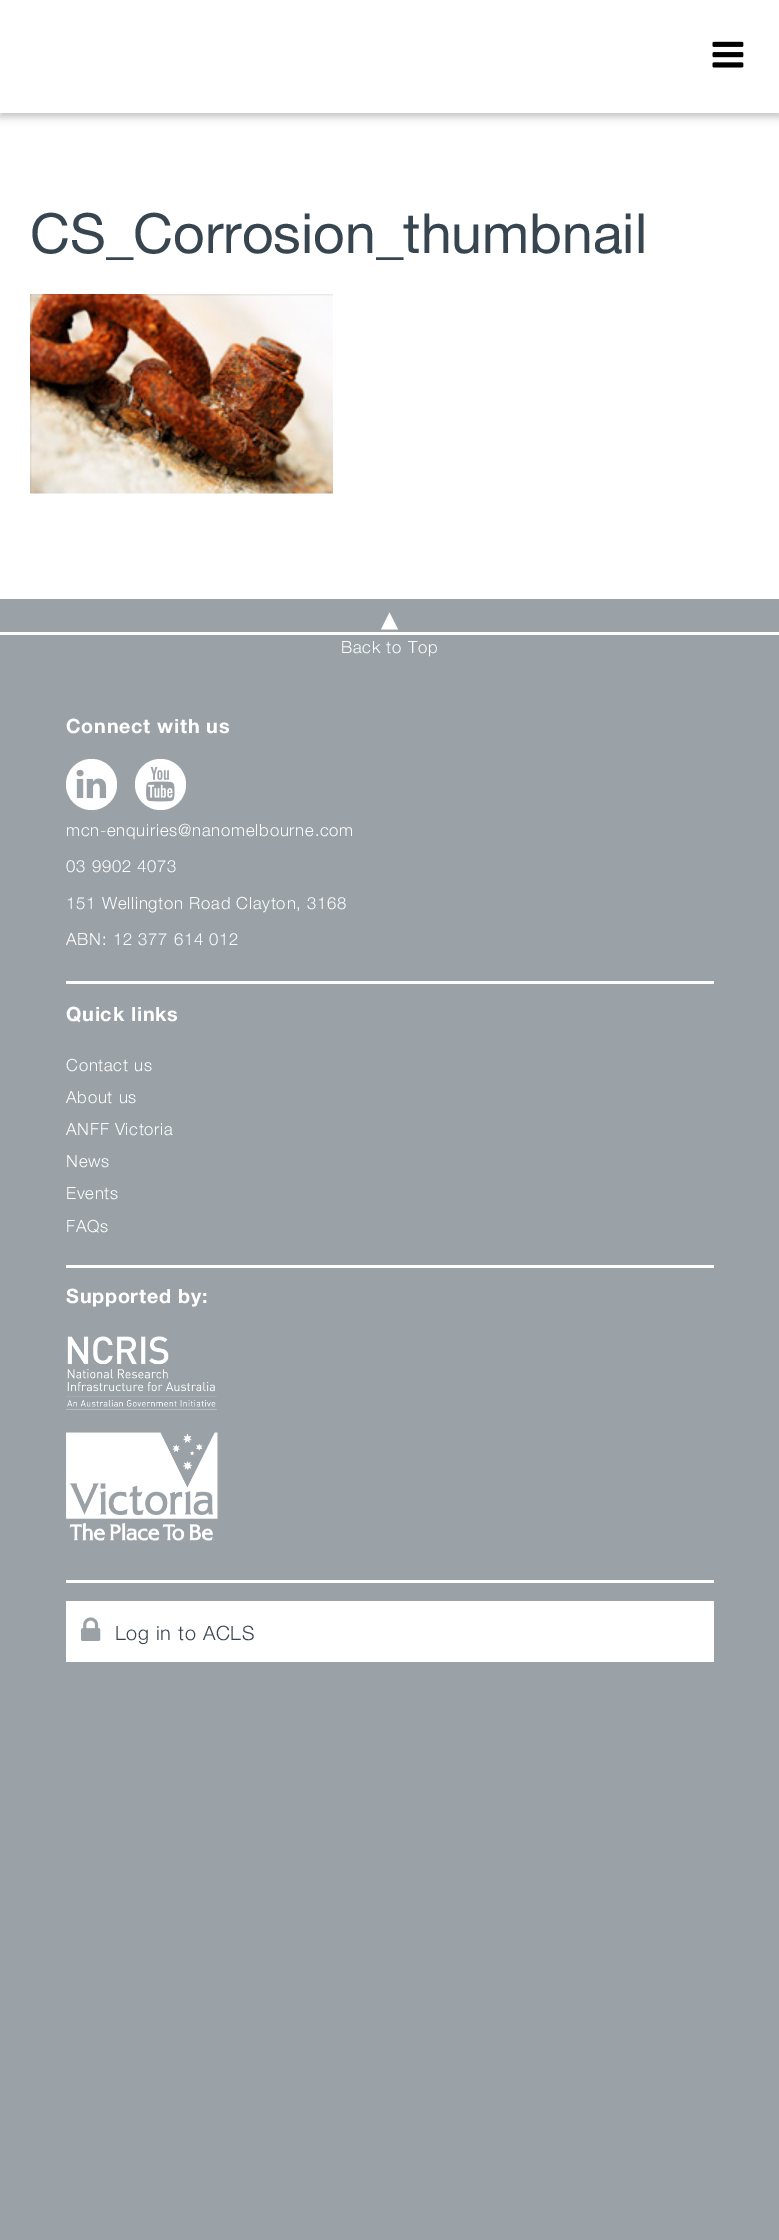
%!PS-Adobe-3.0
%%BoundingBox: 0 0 779 2240
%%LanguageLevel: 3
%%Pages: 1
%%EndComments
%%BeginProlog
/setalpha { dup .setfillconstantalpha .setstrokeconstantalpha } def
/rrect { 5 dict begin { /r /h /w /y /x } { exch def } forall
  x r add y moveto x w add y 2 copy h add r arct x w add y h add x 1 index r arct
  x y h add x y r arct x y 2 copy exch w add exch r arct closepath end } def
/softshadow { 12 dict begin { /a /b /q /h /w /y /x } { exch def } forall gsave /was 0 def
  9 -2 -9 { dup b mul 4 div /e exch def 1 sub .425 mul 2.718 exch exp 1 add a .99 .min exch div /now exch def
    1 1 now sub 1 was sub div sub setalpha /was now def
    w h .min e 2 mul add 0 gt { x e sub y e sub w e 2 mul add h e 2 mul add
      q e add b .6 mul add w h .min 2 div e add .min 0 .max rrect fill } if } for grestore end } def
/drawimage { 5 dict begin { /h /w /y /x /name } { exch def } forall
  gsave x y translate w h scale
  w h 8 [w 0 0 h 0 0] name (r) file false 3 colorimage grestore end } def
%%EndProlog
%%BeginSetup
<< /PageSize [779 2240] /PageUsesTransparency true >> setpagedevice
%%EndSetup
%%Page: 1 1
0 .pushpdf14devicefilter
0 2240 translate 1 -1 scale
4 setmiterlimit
0.604 0.635 0.655 setrgbcolor
0 0 779 2240 rectfill
1 setgray
0 113 779 486 rectfill
0.196 setgray
0 5 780 112 0 4 0.3 softshadow
1 setgray
0 0 779 113 rectfill
(images/1.raw) 712 41 32 27 drawimage
(images/2.raw) 30 294 303 200 drawimage
0 632 779 3 rectfill
newpath 381 629.5 moveto 389.5 612.5 lineto 398 629.5 lineto closepath fill
66 981 648 3 rectfill
newpath 91.5 784.5 25.5 0 360 arc closepath fill
(images/3.raw) 76 769 31 30 drawimage
newpath 160.5 784.5 25.5 0 360 arc closepath fill
(images/4.raw) 146 766 29 36 drawimage
66 1265 648 3 rectfill
66 1580 648 3 rectfill
(images/5.raw) 66 1336 151 74 drawimage
(images/6.raw) 66 1432 152 109 drawimage
66 1601 648 61 rectfill
(images/7.raw) 81 1617 20 24 drawimage
/HelveticaNeue-Regular [55.25 0 0 -55.25 0 0] selectfont
0.212 0.271 0.31 setrgbcolor
30 253 moveto (CS_Corrosion_thumbnail) show
/HelveticaNeue-Light [16.75 0 0 -16.75 0 0] selectfont
1 setgray
341 653 moveto 0.75 0 (Back to Top) ashow
/HelveticaNeue-Bold [19.75 0 0 -19.75 0 0] selectfont
66 733 moveto 0.75 0 (Connect with us) ashow
/HelveticaNeue-Light [16.75 0 0 -16.75 0 0] selectfont
66 836 moveto 0.75 0 (mcn-enquiries@nanomelbourne.com) ashow
66 872 moveto 0.75 0 (03 9902 4073) ashow
66 909 moveto 0.75 0 (151 Wellington Road Clayton, 3168) ashow
66 945 moveto 0.75 0 (ABN: 12 377 614 012) ashow
/HelveticaNeue-Bold [19.75 0 0 -19.75 0 0] selectfont
66 1021 moveto 0.75 0 (Quick links) ashow
/HelveticaNeue-Light [16.75 0 0 -16.75 0 0] selectfont
66 1071 moveto 0.75 0 (Contact us) ashow
66 1103 moveto 0.75 0 (About us) ashow
66 1135 moveto 0.75 0 (ANFF Victoria) ashow
66 1167 moveto 0.75 0 (News) ashow
66 1199 moveto 0.75 0 (Events) ashow
66 1232 moveto 0.75 0 (FAQs) ashow
/HelveticaNeue-Bold [19.75 0 0 -19.75 0 0] selectfont
66 1303 moveto 0.75 0 (Supported by:) ashow
/HelveticaNeue-Light [19.75 0 0 -19.75 0 0] selectfont
0.212 0.271 0.31 setrgbcolor
115 1640 moveto 0.75 0 (Log in to ACLS) ashow
.poppdf14devicefilter showpage
%%EOF
